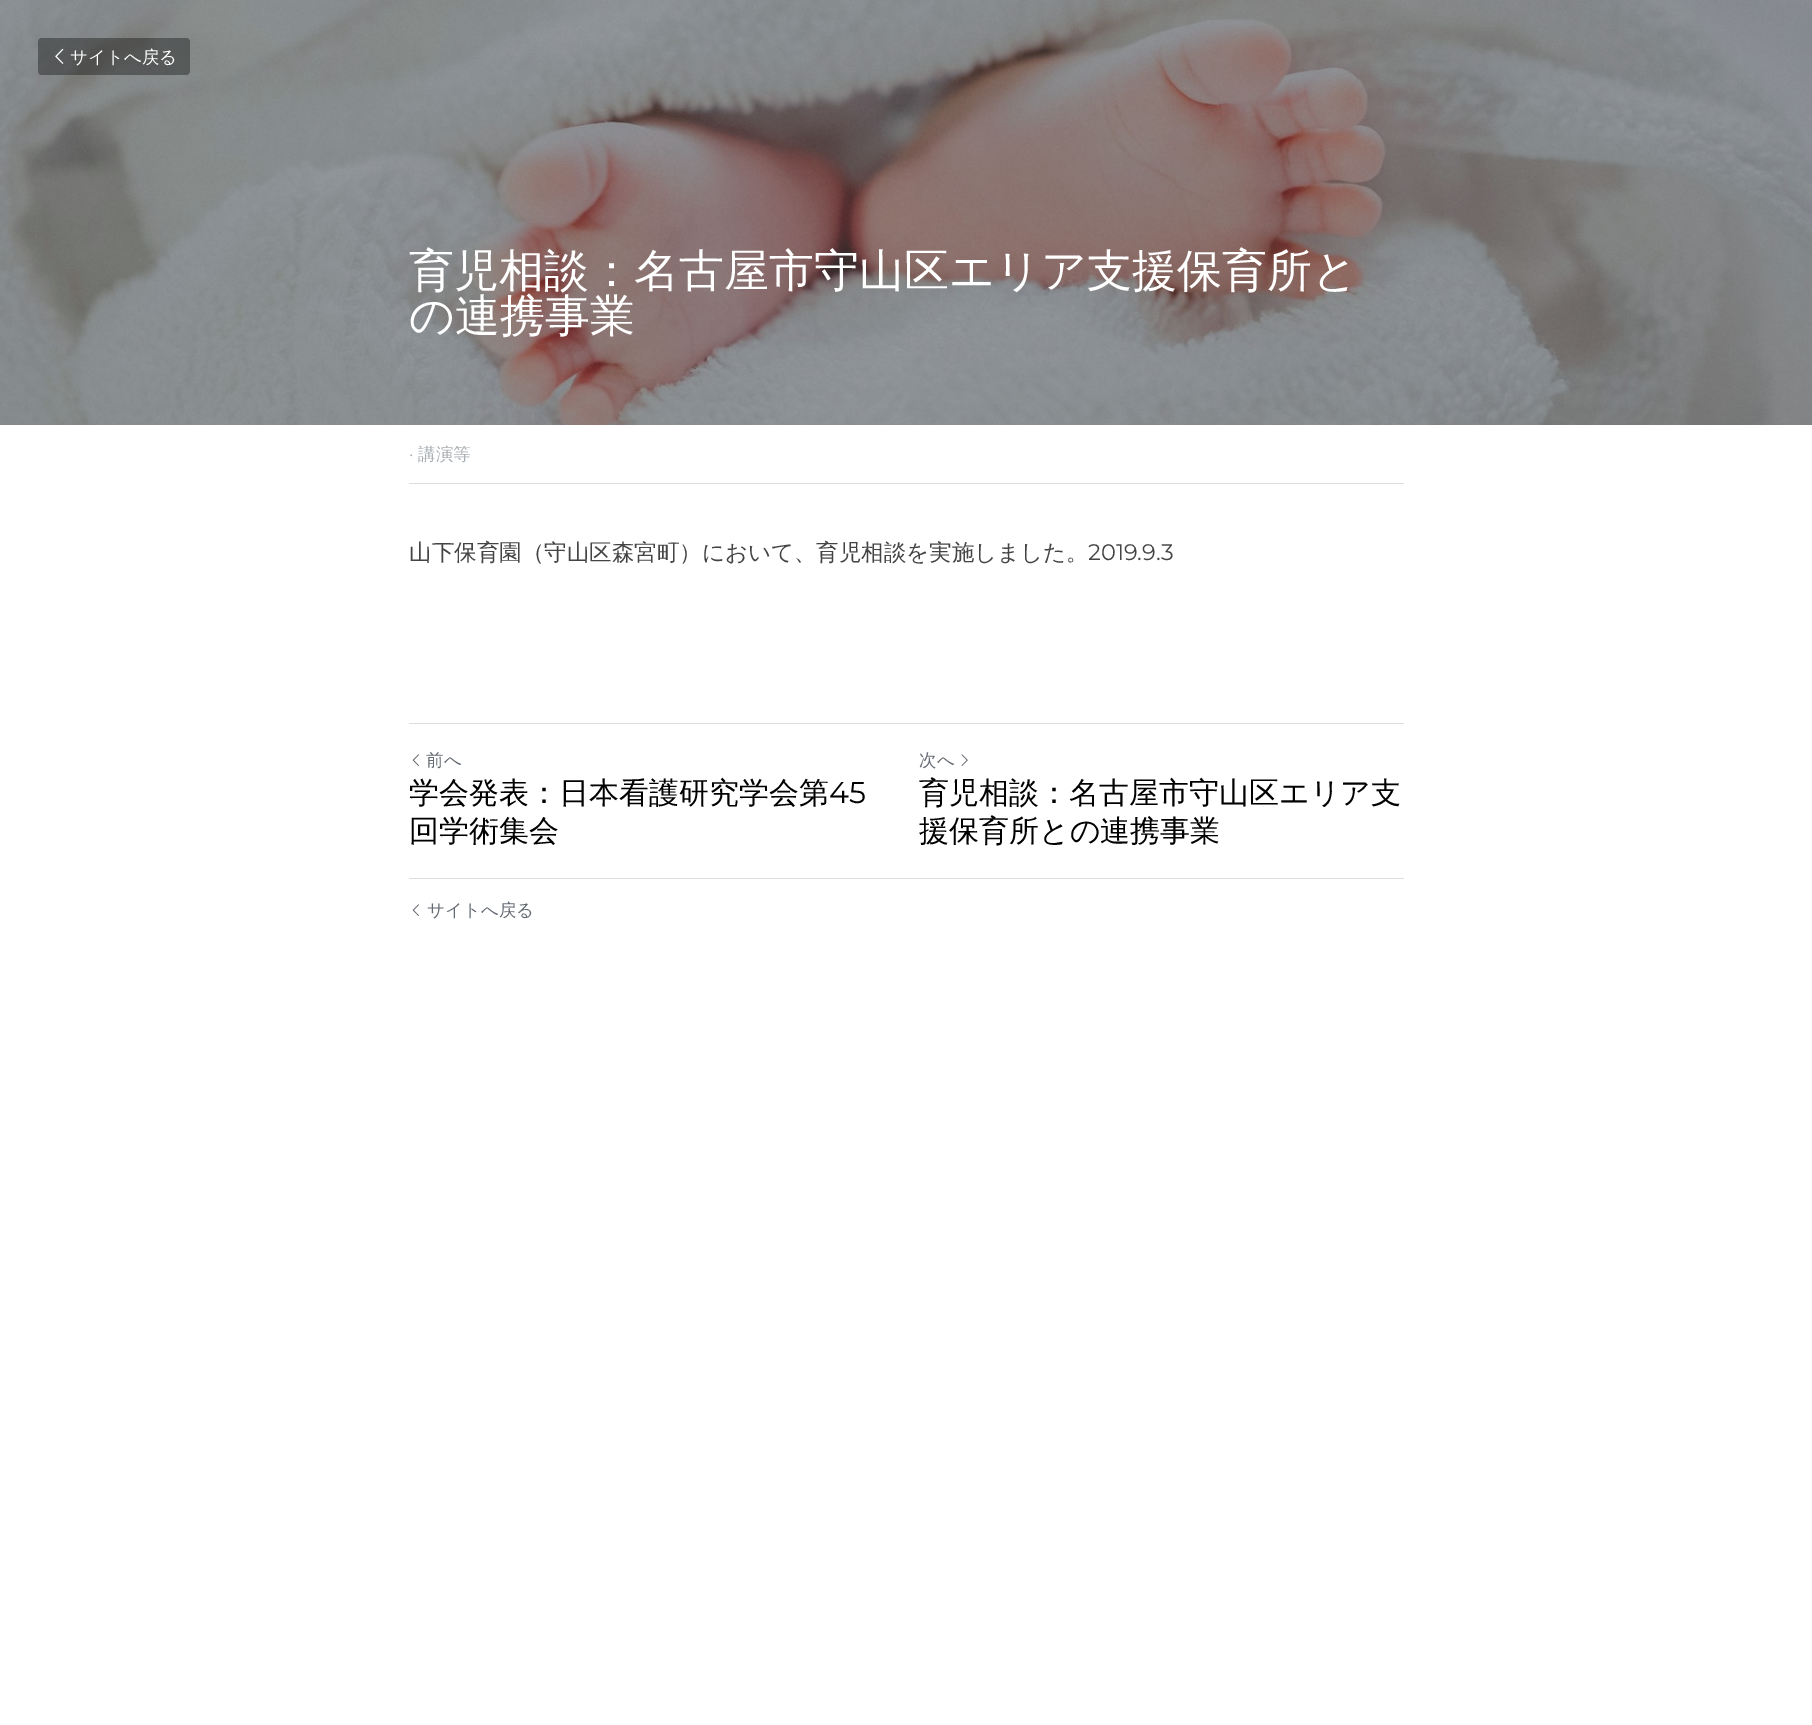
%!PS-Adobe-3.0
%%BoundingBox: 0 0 1812 1725
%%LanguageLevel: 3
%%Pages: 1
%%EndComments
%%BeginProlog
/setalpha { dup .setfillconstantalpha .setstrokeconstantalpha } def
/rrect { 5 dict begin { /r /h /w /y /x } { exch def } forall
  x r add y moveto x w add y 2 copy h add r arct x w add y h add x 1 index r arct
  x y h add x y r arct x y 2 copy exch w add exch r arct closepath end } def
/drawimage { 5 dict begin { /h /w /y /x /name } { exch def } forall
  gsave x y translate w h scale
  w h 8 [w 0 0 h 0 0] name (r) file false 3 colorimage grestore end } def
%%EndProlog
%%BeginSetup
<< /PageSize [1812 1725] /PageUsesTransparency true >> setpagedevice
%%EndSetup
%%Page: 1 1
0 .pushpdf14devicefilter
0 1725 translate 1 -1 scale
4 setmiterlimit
1 setgray
0 0 1812 1725 rectfill
(images/1.raw) 0 0 1812 425 drawimage
0.35 setalpha
0 setgray
38 38 152 37 4 rrect fill
1 setalpha
(images/2.raw) 55 48 9 16 drawimage
0.867 setgray
409 483 995 1 rectfill
409 723 995 1 rectfill
(images/3.raw) 412 754 7 12 drawimage
(images/4.raw) 961 754 7 12 drawimage
409 878 995 1 rectfill
(images/3.raw) 412 904 7 12 drawimage
/WenQuanYiZenHei-Medium [17.5 0 0 -17.5 0 0] selectfont
1 setgray
70 63 moveto (サイトへ戻る) show
/WenQuanYiZenHei-Medium [45 0 0 -45 0 0] selectfont
409 286 moveto (育児相談：名古屋市守山区エリア支援保育所と) show
409 331 moveto (の連携事業) show
/Montserrat-Regular [17.5 0 0 -17.5 0 0] selectfont
0.663 0.682 0.698 setrgbcolor
409 460 moveto (·) show
/WenQuanYiZenHei-Medium [17.5 0 0 -17.5 0 0] selectfont
418 460 moveto (講演等) show
/WenQuanYiZenHei-Medium [22.5 0 0 -22.5 0 0] selectfont
0.267 setgray
409 560 moveto (山下保育園（守山区森宮町）において、育児相談を実施しました。) show
/Montserrat-Regular [22.5 0 0 -22.5 0 0] selectfont
1088 560 moveto (2019.9.3) show
/WenQuanYiZenHei-Medium [17.5 0 0 -17.5 0 0] selectfont
0.388 0.412 0.447 setrgbcolor
426 766 moveto (前へ) show
/WenQuanYiZenHei-Medium [30 0 0 -30 0 0] selectfont
0 setgray
409 803 moveto (学会発表：日本看護研究学会第) show
/Montserrat-Regular [30 0 0 -30 0 0] selectfont
829 803 moveto (45) show
/WenQuanYiZenHei-Medium [30 0 0 -30 0 0] selectfont
409 841 moveto (回学術集会) show
/WenQuanYiZenHei-Medium [17.5 0 0 -17.5 0 0] selectfont
0.388 0.412 0.447 setrgbcolor
919 766 moveto (次へ) show
/WenQuanYiZenHei-Medium [30 0 0 -30 0 0] selectfont
0 setgray
919 803 moveto (育児相談：名古屋市守山区エリア支) show
919 841 moveto (援保育所との連携事業) show
/WenQuanYiZenHei-Medium [17.5 0 0 -17.5 0 0] selectfont
0.388 0.412 0.447 setrgbcolor
427 916 moveto (サイトへ戻る) show
.poppdf14devicefilter showpage
%%EOF
